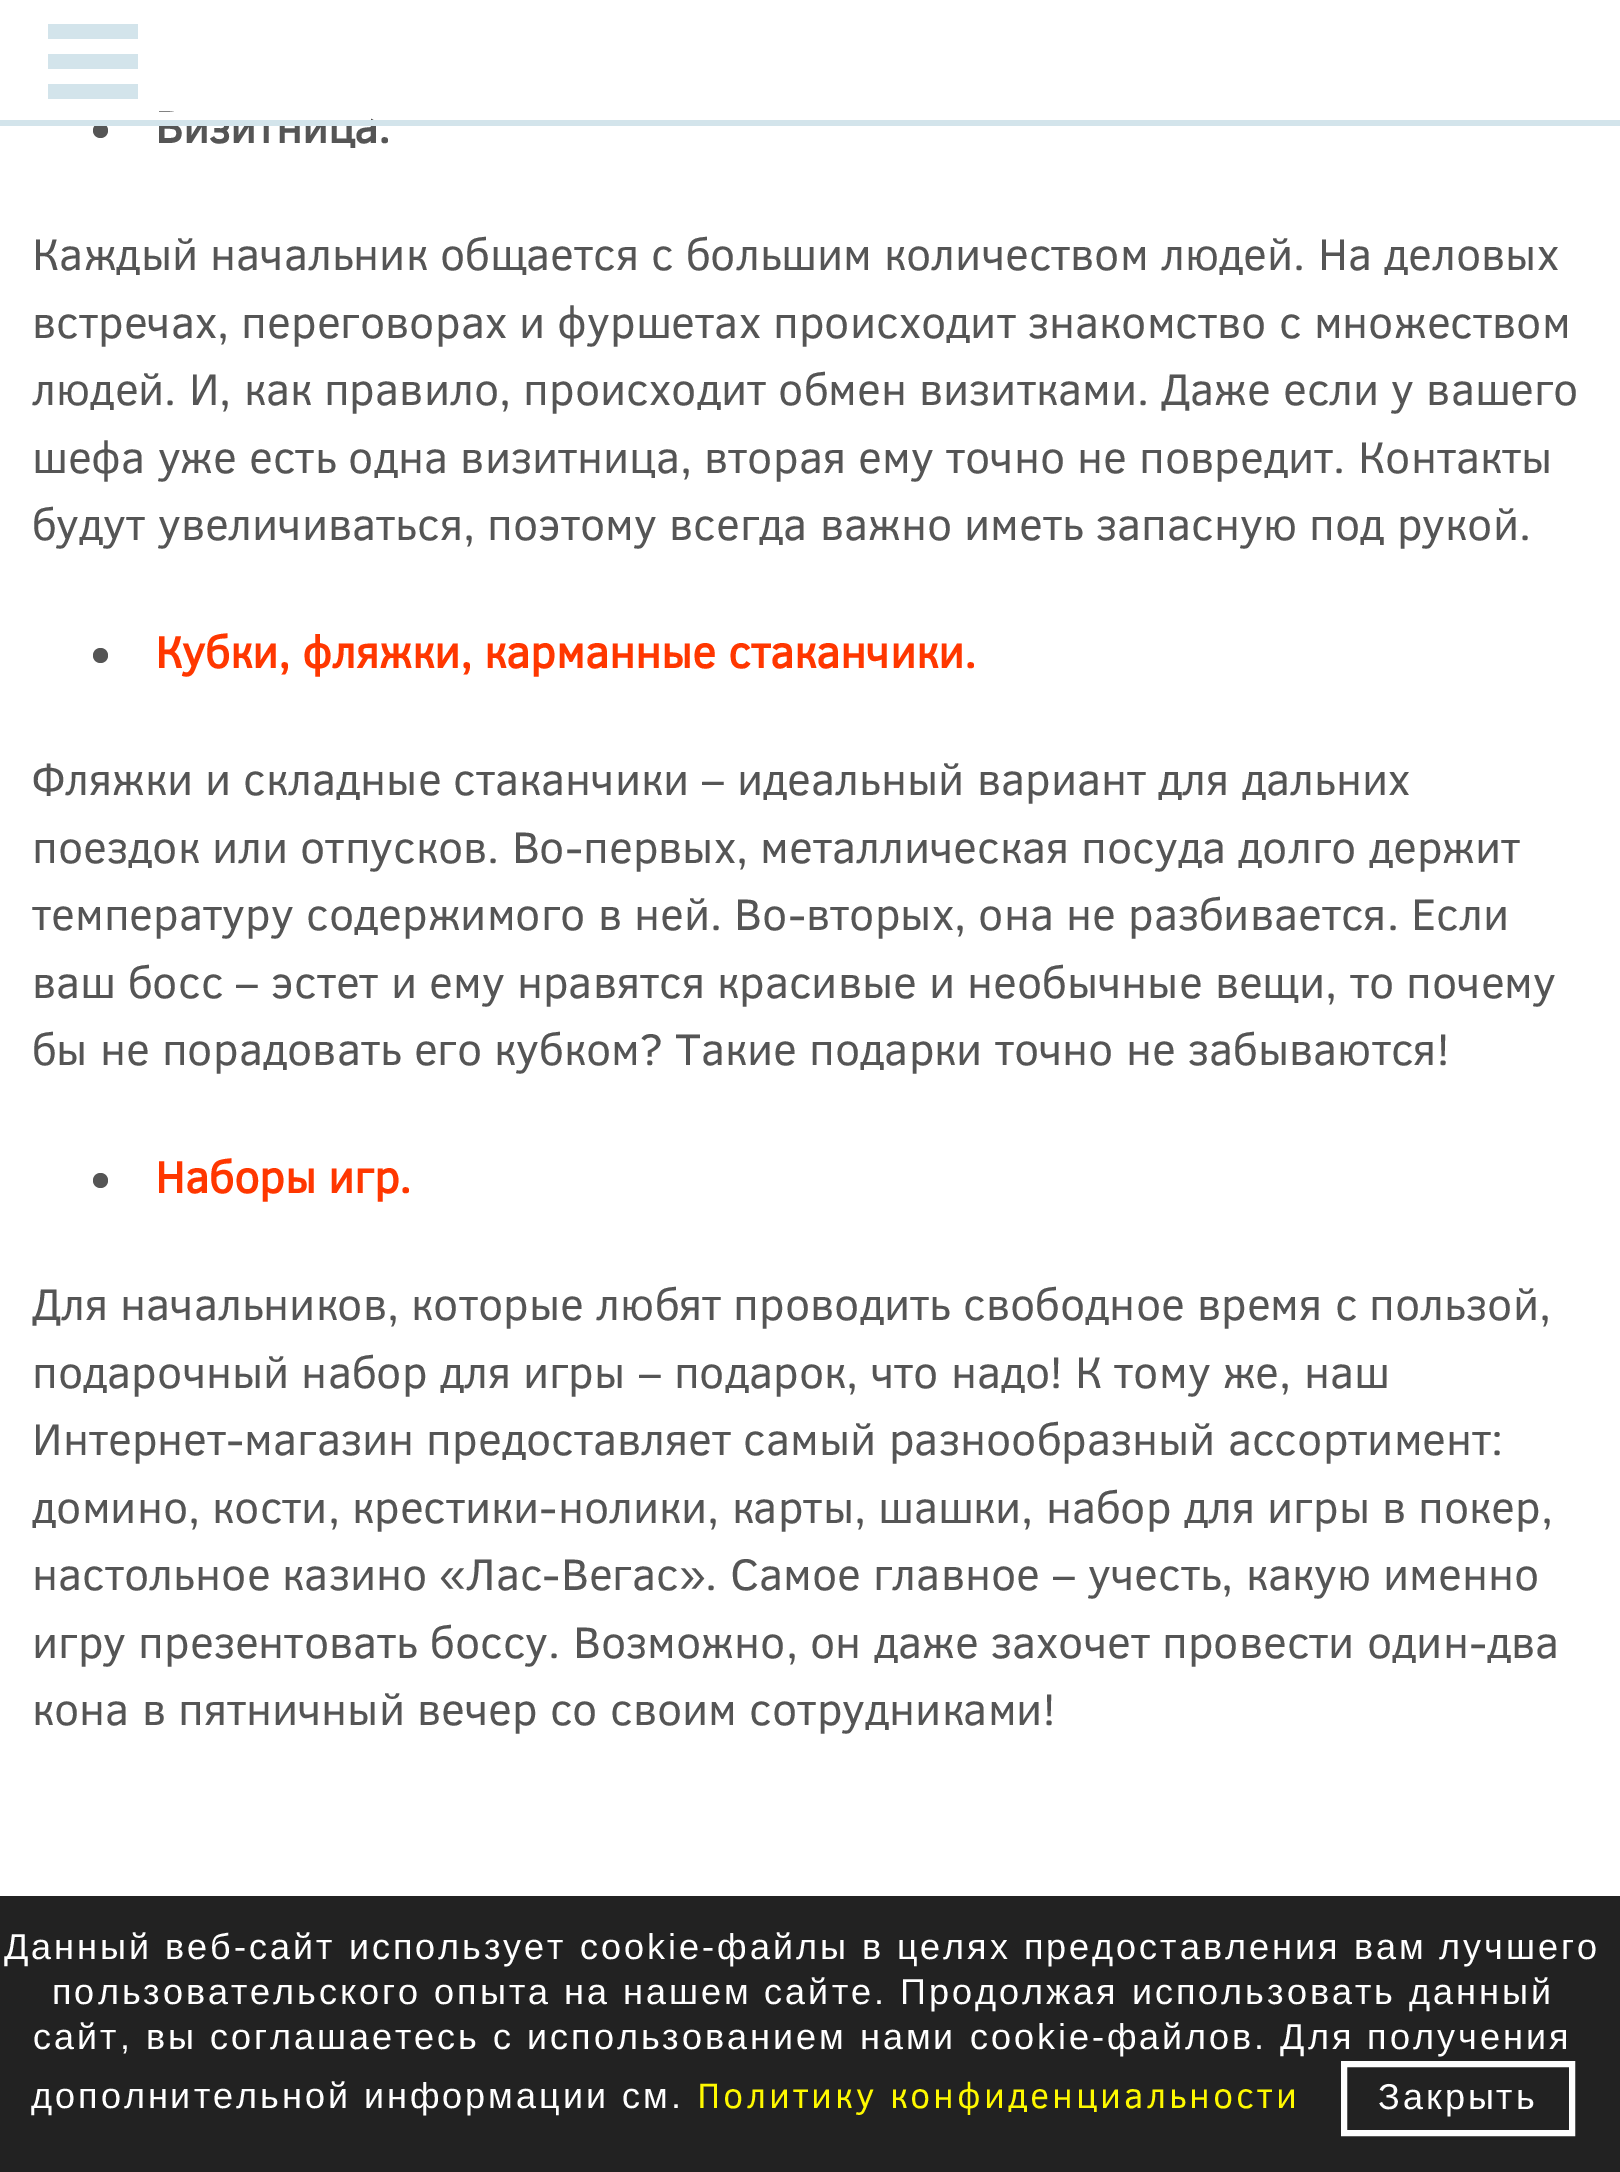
%!PS-Adobe-3.0
%%BoundingBox: 0 0 1620 2172
%%LanguageLevel: 3
%%Pages: 1
%%EndComments
%%BeginProlog
%%EndProlog
%%BeginSetup
<< /PageSize [1620 2172] >> setpagedevice
%%EndSetup
%%Page: 1 1
0 2172 translate 1 -1 scale
4 setmiterlimit
1 setgray
0 0 1620 2172 rectfill
0.827 0.894 0.922 setrgbcolor
48 54 90 15 rectfill
48 24 90 15 rectfill
48 84 90 15 rectfill
0.333 setgray
newpath 100.5 130.5 7.5 0 360 arc closepath fill
newpath 100.5 655.5 7.5 0 360 arc closepath fill
newpath 100.5 1180.5 7.5 0 360 arc closepath fill
0.133 setgray
0 1896 1620 276 rectfill
1 setgray
6 setlinewidth
1344 2064 228 69 rectstroke
/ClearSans-Bold [45 0 0 -45 0 0] selectfont
0.333 setgray
155 143 moveto (Визитница.) show
0.827 0.894 0.922 setrgbcolor
0 120 1620 6 rectfill
1 setgray
159 112 212 8 rectfill
/ClearSans-Regular [45 0 0 -45 0 0] selectfont
0.333 setgray
32 270 moveto (Каждый начальник общается с большим количеством людей. На деловых) show
32 338 moveto (встречах, переговорах и фуршетах происходит знакомство с множеством) show
32 405 moveto (людей. И, как правило, происходит обмен визитками. Даже если у вашего) show
32 473 moveto (шефа уже есть одна визитница, вторая ему точно не повредит. Контакты) show
32 540 moveto (будут увеличиваться, поэтому всегда важно иметь запасную под рукой.) show
/ClearSans-Bold [45 0 0 -45 0 0] selectfont
1 0.216 0 setrgbcolor
155 668 moveto (Кубки, фляжки, карманные стаканчики.) show
/ClearSans-Regular [45 0 0 -45 0 0] selectfont
0.333 setgray
32 795 moveto (Фляжки и складные стаканчики – идеальный вариант для дальних) show
32 863 moveto (поездок или отпусков. Во-первых, металлическая посуда долго держит) show
32 930 moveto (температуру содержимого в ней. Во-вторых, она не разбивается. Если) show
32 998 moveto (ваш босс – эстет и ему нравятся красивые и необычные вещи, то почему) show
32 1065 moveto (бы не порадовать его кубком? Такие подарки точно не забываются!) show
/ClearSans-Bold [45 0 0 -45 0 0] selectfont
1 0.216 0 setrgbcolor
155 1193 moveto (Наборы игр.) show
/ClearSans-Regular [45 0 0 -45 0 0] selectfont
0.333 setgray
32 1320 moveto (Для начальников, которые любят проводить свободное время с пользой,) show
32 1388 moveto (подарочный набор для игры – подарок, что надо! К тому же, наш) show
32 1455 moveto (Интернет-магазин предоставляет самый разнообразный ассортимент:) show
32 1523 moveto (домино, кости, крестики-нолики, карты, шашки, набор для игры в покер,) show
32 1590 moveto (настольное казино «Лас-Вегас». Самое главное – учесть, какую именно) show
32 1658 moveto (игру презентовать боссу. Возможно, он даже захочет провести один-два) show
32 1725 moveto (кона в пятничный вечер со своим сотрудниками!) show
/LiberationSans-Regular [36 0 0 -36 0 0] selectfont
1 setgray
4 1959 moveto 3 0 (Данный веб-сайт использует cookie-файлы в целях предоставления вам лучшего) ashow
52 2004 moveto 3 0 (пользовательского опыта на нашем сайте. Продолжая использовать данный) ashow
33 2049 moveto 3 0 (сайт, вы соглашаетесь с использованием нами cookie-файлов. Для получения) ashow
31 2108 moveto 3 0 (дополнительной информации см.) ashow
/ClearSans-Regular [36 0 0 -36 0 0] selectfont
1 0.976 0 setrgbcolor
697 2108 moveto 3 0 (Политику конфиденциальности) ashow
/LiberationSans-Regular [36 0 0 -36 0 0] selectfont
1 setgray
1378 2109 moveto 3 0 (Закрыть) ashow
showpage
%%EOF
